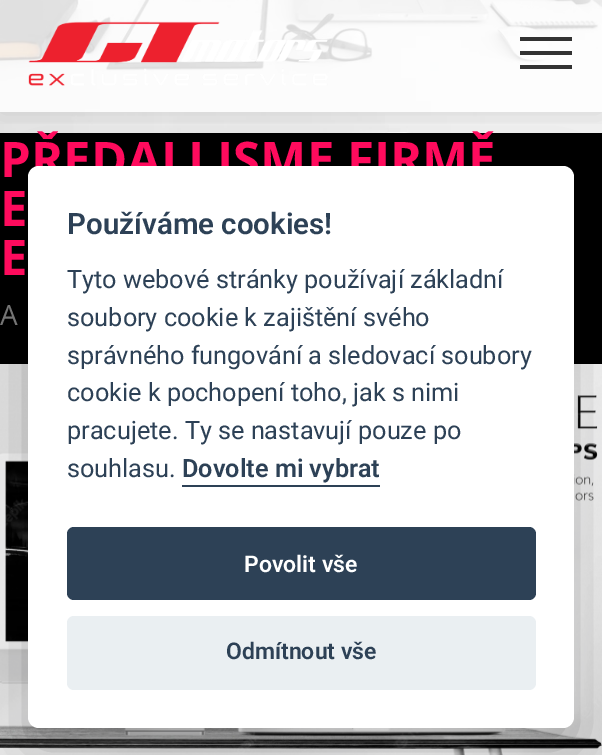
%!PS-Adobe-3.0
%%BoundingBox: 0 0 602 755
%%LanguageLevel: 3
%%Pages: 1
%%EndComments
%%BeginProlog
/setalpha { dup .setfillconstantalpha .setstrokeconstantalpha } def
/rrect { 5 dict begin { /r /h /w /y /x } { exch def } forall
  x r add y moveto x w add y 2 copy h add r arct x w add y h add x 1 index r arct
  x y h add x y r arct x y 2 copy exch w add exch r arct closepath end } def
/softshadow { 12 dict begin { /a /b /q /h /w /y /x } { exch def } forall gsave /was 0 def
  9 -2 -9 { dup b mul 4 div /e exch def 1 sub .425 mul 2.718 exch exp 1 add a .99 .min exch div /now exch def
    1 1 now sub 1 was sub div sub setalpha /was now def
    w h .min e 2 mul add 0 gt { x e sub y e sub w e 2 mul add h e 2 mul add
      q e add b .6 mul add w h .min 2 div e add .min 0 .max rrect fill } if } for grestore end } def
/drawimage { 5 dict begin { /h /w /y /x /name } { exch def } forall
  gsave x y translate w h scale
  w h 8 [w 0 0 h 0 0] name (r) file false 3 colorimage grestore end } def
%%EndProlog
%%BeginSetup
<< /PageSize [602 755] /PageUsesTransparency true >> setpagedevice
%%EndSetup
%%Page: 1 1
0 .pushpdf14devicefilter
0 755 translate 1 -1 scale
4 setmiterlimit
0 setgray
0 0 602 755 rectfill
(images/2.raw) 0 0 602 133 drawimage
gsave
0 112 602 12 rectclip
0 0 602 112 0 14 0.1 softshadow
grestore
0.85 setalpha
1 setgray
0 0 602 112 rectfill
1 setalpha
(images/1.raw) 28 21 300 65 drawimage
0.2 setgray
520 37 52 4 rectfill
520 51 52 4 rectfill
520 65 52 4 rectfill
(images/3.raw) 0 364 602 391 drawimage
0.008 0.008 0.012 setrgbcolor
28 184 546 562 11 26 0.28 softshadow
/OpenSans-Bold [49 0 0 -49 0 0] selectfont
1 0.043 0.365 setrgbcolor
0 177 moveto (PŘEDALI JSME FIRMĚ) show
0 226 moveto (E) show
0 275 moveto (E) show
/OpenSans-Regular [28 0 0 -28 0 0] selectfont
0.455 setgray
0 325 moveto (A) show
1 setgray
28 166 546 562 11 rrect fill
/Roboto-SemiBold [29.5 0 0 -29.5 0 0] selectfont
0.176 0.255 0.337 setrgbcolor
67 234 moveto (Používáme cookies!) show
/Roboto-Regular [25.25 0 0 -25.25 0 0] selectfont
67 288 moveto (Tyto webové stránky používají základní) show
67 326 moveto (soubory cookie k zajištění svého) show
67 364 moveto (správného fungování a sledovací soubory) show
67 401 moveto (cookie k pochopení toho, jak s nimi) show
67 439 moveto (pracujete. Ty se nastavují pouze po) show
67 477 moveto (souhlasu.) show
/Roboto-SemiBold [25.25 0 0 -25.25 0 0] selectfont
182 477 moveto (Dovolte mi vybrat) show
182 485 198 2 rectfill
67 527 469 73 7 rrect fill
/Roboto-SemiBold [23 0 0 -23 0 0] selectfont
1 setgray
244 572 moveto (Povolit vše) show
0.918 0.937 0.949 setrgbcolor
67 616 469 74 7 rrect fill
0.176 0.255 0.337 setrgbcolor
226 659 moveto (Odmítnout vše) show
.poppdf14devicefilter showpage
%%EOF
